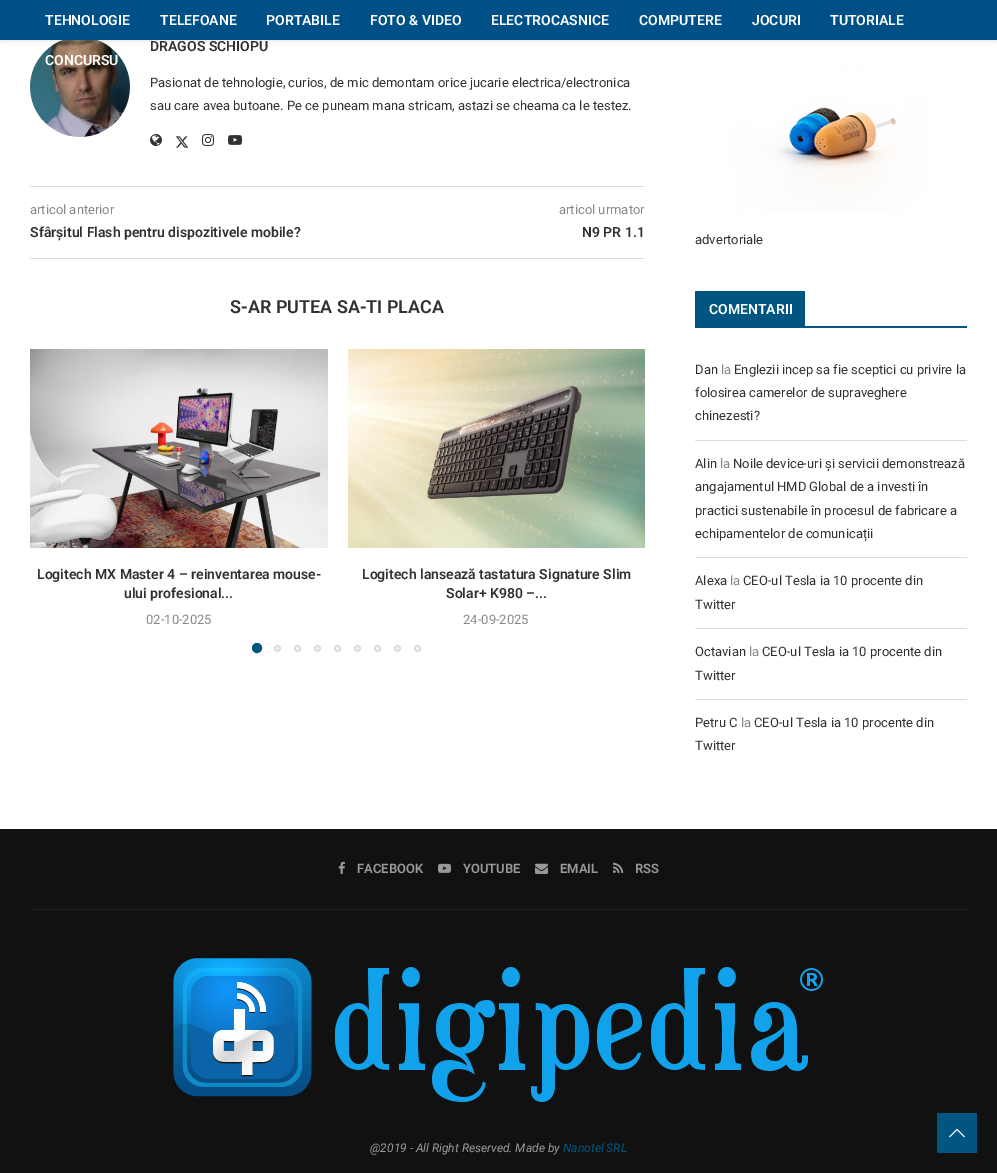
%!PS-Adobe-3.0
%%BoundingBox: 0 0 997 1173
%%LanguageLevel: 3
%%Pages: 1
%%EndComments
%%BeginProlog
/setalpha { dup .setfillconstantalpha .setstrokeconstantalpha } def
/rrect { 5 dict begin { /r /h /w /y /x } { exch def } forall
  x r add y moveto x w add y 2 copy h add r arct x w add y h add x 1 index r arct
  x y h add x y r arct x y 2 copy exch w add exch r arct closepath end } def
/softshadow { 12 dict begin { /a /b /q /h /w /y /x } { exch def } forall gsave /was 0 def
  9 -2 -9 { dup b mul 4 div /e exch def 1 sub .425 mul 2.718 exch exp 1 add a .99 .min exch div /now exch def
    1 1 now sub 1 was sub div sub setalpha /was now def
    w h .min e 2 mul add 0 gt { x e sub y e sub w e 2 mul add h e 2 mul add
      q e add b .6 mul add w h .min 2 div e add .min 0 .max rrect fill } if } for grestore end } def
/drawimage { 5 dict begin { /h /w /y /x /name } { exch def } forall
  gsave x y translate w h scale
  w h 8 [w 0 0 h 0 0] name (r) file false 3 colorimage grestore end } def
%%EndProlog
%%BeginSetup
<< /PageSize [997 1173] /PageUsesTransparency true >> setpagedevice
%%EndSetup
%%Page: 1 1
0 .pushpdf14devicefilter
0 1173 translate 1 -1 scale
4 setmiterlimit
1 setgray
0 0 997 1173 rectfill
(images/1.raw) 30 40 100 97 drawimage
(images/8.raw) 730 40 196 172 drawimage
0.745 setgray
0 1 997 40 0 2.5 0.46 softshadow
0 0.314 0.533 setrgbcolor
0 0 997 40 rectfill
(images/2.raw) 150 134 12 12 drawimage
(images/3.raw) 175 136 14 12 drawimage
(images/4.raw) 202 134 12 12 drawimage
(images/5.raw) 228 135 14 10 drawimage
0.871 setgray
30 186 615 1 rectfill
30 258 615 1 rectfill
(images/6.raw) 30 349 298 199 drawimage
(images/7.raw) 348 349 297 199 drawimage
0 0.337 0.502 setrgbcolor
newpath 257 648 4 0 360 arc closepath gsave fill grestore
2 setlinewidth
stroke
0.871 setgray
newpath 277.5 648.5 2.5 0 360 arc closepath stroke
newpath 297.5 648.5 2.5 0 360 arc closepath stroke
newpath 317.5 648.5 2.5 0 360 arc closepath stroke
newpath 337.5 648.5 2.5 0 360 arc closepath stroke
newpath 357.5 648.5 2.5 0 360 arc closepath stroke
newpath 377.5 648.5 2.5 0 360 arc closepath stroke
newpath 397.5 648.5 2.5 0 360 arc closepath stroke
newpath 417.5 648.5 2.5 0 360 arc closepath stroke
0 0.337 0.502 setrgbcolor
695 326 272 2 rectfill
697 292 107 34 rectfill
695 291 110 1 rectfill
804 291 1 37 rectfill
695 291 2 37 rectfill
0.871 setgray
695 440 272 1 rectfill
695 557 272 1 rectfill
695 628 272 1 rectfill
695 699 272 1 rectfill
0.067 setgray
0 829 997 344 rectfill
0.129 setgray
30 909 937 1 rectfill
(images/9.raw) 338 861 7 13 drawimage
(images/10.raw) 438 863 13 10 drawimage
(images/11.raw) 535 863 13 11 drawimage
(images/12.raw) 613 862 11 11 drawimage
(images/13.raw) 173 958 650 144 drawimage
0 0.337 0.502 setrgbcolor
937 1113 40 40 rectfill
(images/14.raw) 949 1128 16 10 drawimage
/Roboto-SemiBold [14 0 0 -14 0 0] selectfont
1 setgray
45 25 moveto (TEHNOLOGIE) show
160 25 moveto (TELEFOANE) show
266 25 moveto (PORTABILE) show
370 25 moveto (FOTO & VIDEO) show
491 25 moveto (ELECTROCASNICE) show
639 25 moveto (COMPUTERE) show
752 25 moveto (JOCURI) show
830 25 moveto (TUTORIALE) show
45 65 moveto (CONCURSU) show
0.192 setgray
150 51 moveto (DRAGOS SCHIOPU) show
/Roboto-Regular [13 0 0 -13 0 0] selectfont
150 87 moveto (Pasionat de tehnologie, curios, de mic demontam orice jucarie electrica/electronica) show
150 110 moveto (sau care avea butoane. Pe ce puneam mana stricam, astazi se cheama ca le testez.) show
0.533 setgray
30 214 moveto (articol anterior) show
/Roboto-SemiBold [14 0 0 -14 0 0] selectfont
0.192 setgray
30 237 moveto (Sfârșitul Flash pentru dispozitivele mobile?) show
/Roboto-Regular [13 0 0 -13 0 0] selectfont
0.533 setgray
559 214 moveto (articol urmator) show
/Roboto-SemiBold [14 0 0 -14 0 0] selectfont
0.192 setgray
582 237 moveto (N9 PR 1.1) show
/Roboto-SemiBold [18 0 0 -18 0 0] selectfont
230 313 moveto (S-AR PUTEA SA-TI PLACA) show
/Roboto-SemiBold [14 0 0 -14 0 0] selectfont
37 579 moveto (Logitech MX Master 4 – reinventarea mouse-) show
124 598 moveto (ului profesional...) show
/Roboto-Regular [13 0 0 -13 0 0] selectfont
0.533 setgray
146 624 moveto (02-10-2025) show
/Roboto-SemiBold [14 0 0 -14 0 0] selectfont
0.192 setgray
362 579 moveto (Logitech lansează tastatura Signature Slim) show
446 598 moveto (Solar+ K980 –...) show
/Roboto-Regular [13 0 0 -13 0 0] selectfont
0.533 setgray
463 624 moveto (24-09-2025) show
0.192 setgray
695 244 moveto (advertoriale) show
/Roboto-SemiBold [14 0 0 -14 0 0] selectfont
1 setgray
709 314 moveto (COMENTARII) show
/Roboto-Regular [13 0 0 -13 0 0] selectfont
0.192 setgray
695 374 moveto (Dan) show
0.533 setgray
721 374 moveto (la) show
0.192 setgray
734 374 moveto (Englezii incep sa fie sceptici cu privire la) show
695 397 moveto (folosirea camerelor de supraveghere) show
695 420 moveto (chinezesti?) show
695 468 moveto (Alin) show
0.533 setgray
720 468 moveto (la) show
0.192 setgray
733 468 moveto (Noile device-uri și servicii demonstrează) show
695 491 moveto (angajamentul HMD Global de a investi în) show
695 515 moveto (practici sustenabile în procesul de fabricare a) show
695 538 moveto (echipamentelor de comunicații) show
695 585 moveto (Alexa) show
0.533 setgray
730 585 moveto (la) show
0.192 setgray
743 585 moveto (CEO-ul Tesla ia 10 procente din) show
695 609 moveto (Twitter) show
695 656 moveto (Octavian) show
0.533 setgray
749 656 moveto (la) show
0.192 setgray
762 656 moveto (CEO-ul Tesla ia 10 procente din) show
695 680 moveto (Twitter) show
695 727 moveto (Petru C) show
0.533 setgray
741 727 moveto (la) show
0.192 setgray
754 727 moveto (CEO-ul Tesla ia 10 procente din) show
695 750 moveto (Twitter) show
/Roboto-SemiBold [13 0 0 -13 0 0] selectfont
0.6 setgray
357 873 moveto (FACEBOOK) show
463 873 moveto (YOUTUBE) show
560 873 moveto (EMAIL) show
635 873 moveto (RSS) show
/Roboto-Italic [12 0 0 -12 0 0] selectfont
370 1152 moveto (@2019 - All Right Reserved. Made by) show
0 0.337 0.502 setrgbcolor
563 1152 moveto (Nanotel SRL) show
.poppdf14devicefilter showpage
%%EOF
